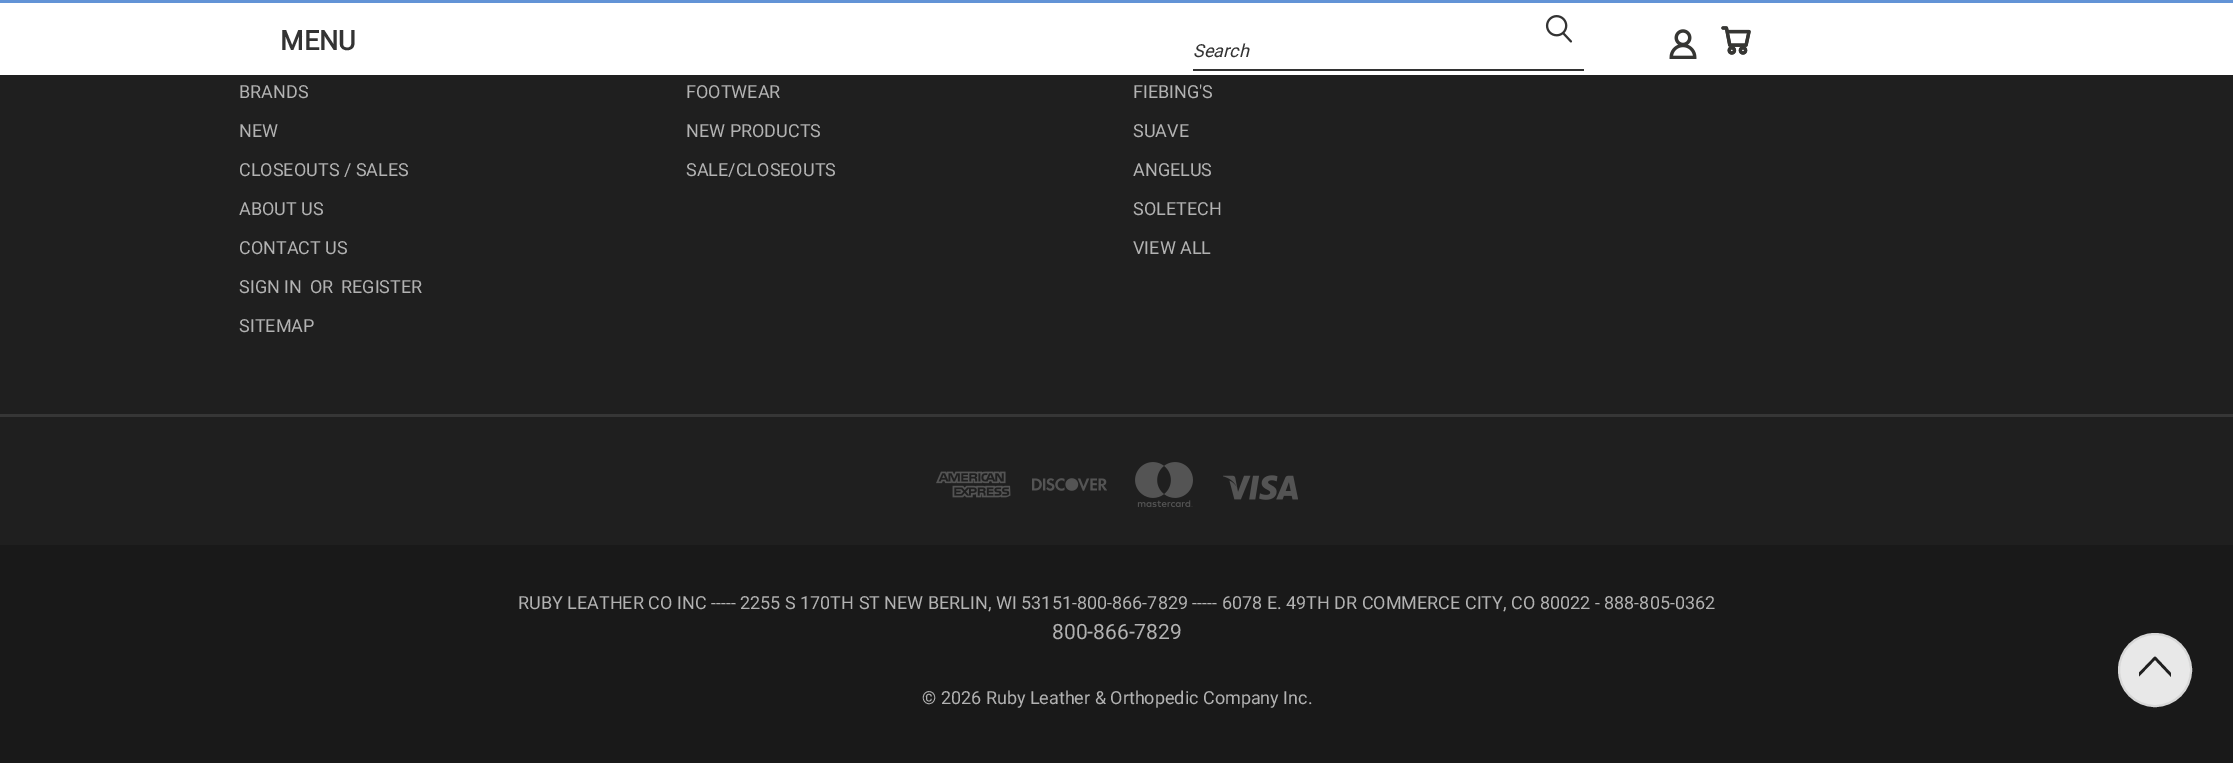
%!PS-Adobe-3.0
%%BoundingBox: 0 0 2233 763
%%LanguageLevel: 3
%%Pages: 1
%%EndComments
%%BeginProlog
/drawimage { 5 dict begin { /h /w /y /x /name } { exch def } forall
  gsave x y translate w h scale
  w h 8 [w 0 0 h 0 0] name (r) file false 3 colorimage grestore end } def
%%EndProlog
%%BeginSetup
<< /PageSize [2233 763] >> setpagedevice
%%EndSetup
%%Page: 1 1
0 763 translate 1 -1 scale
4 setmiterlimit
0.122 setgray
0 0 2233 763 rectfill
1 setgray
0 3 2233 72 rectfill
0.384 0.576 0.839 setrgbcolor
0 0 2233 3 rectfill
(images/1.raw) 1545 15 28 28 drawimage
0.2 setgray
1193 69 391 2 rectfill
(images/2.raw) 1669 29 28 30 drawimage
(images/3.raw) 1721 26 30 29 drawimage
0.212 setgray
0 414 2233 3 rectfill
(images/4.raw) 936 471 75 27 drawimage
(images/5.raw) 1032 478 75 13 drawimage
(images/6.raw) 1135 462 58 45 drawimage
(images/7.raw) 1223 475 75 25 drawimage
0.098 setgray
0 545 2233 218 rectfill
0.91 setgray
newpath 2155 670 36 0 360 arc closepath gsave fill grestore
0.843 setgray
2 setlinewidth
stroke
gsave
newpath 2170.5 656 moveto 2170.5 688 lineto 2139 688 lineto 2139 656 lineto closepath clip newpath
0.122 setgray
2.6 setlinewidth
1 setlinecap
1 setlinejoin
newpath 2181 685.5 moveto 2155 658 lineto 2128.5 685.5 lineto stroke
grestore
/Roboto-Bold [27 0 0 -27 0 0] selectfont
0.2 setgray
280 50 moveto (MENU) show
/Roboto-Italic [18 0 0 -18 0 0] selectfont
1193 57 moveto (Search) show
/Roboto-Regular [18 0 0 -18 0 0] selectfont
0.698 setgray
239 98 moveto (BRANDS) show
239 137 moveto (NEW) show
239 176 moveto (CLOSEOUTS / SALES) show
239 215 moveto (ABOUT US) show
239 254 moveto (CONTACT US) show
239 293 moveto (SIGN IN) show
310 293 moveto (OR) show
341 293 moveto (REGISTER) show
239 332 moveto (SITEMAP) show
686 98 moveto (FOOTWEAR) show
686 137 moveto (NEW PRODUCTS) show
686 176 moveto (SALE/CLOSEOUTS) show
1133 98 moveto (FIEBING'S) show
1133 137 moveto (SUAVE) show
1133 176 moveto (ANGELUS) show
1133 215 moveto (SOLETECH) show
1133 254 moveto (VIEW ALL) show
518 609 moveto (RUBY LEATHER CO INC ----- 2255 S 170TH ST NEW BERLIN, WI 53151-800-866-7829 ----- 6078 E. 49TH DR COMMERCE CITY, CO 80022 - 888-805-0362) show
/Roboto-Regular [21 0 0 -21 0 0] selectfont
1052 639 moveto (800-866-7829) show
/Roboto-Regular [18 0 0 -18 0 0] selectfont
922 704 moveto (© 2026 Ruby Leather & Orthopedic Company Inc.) show
showpage
%%EOF
